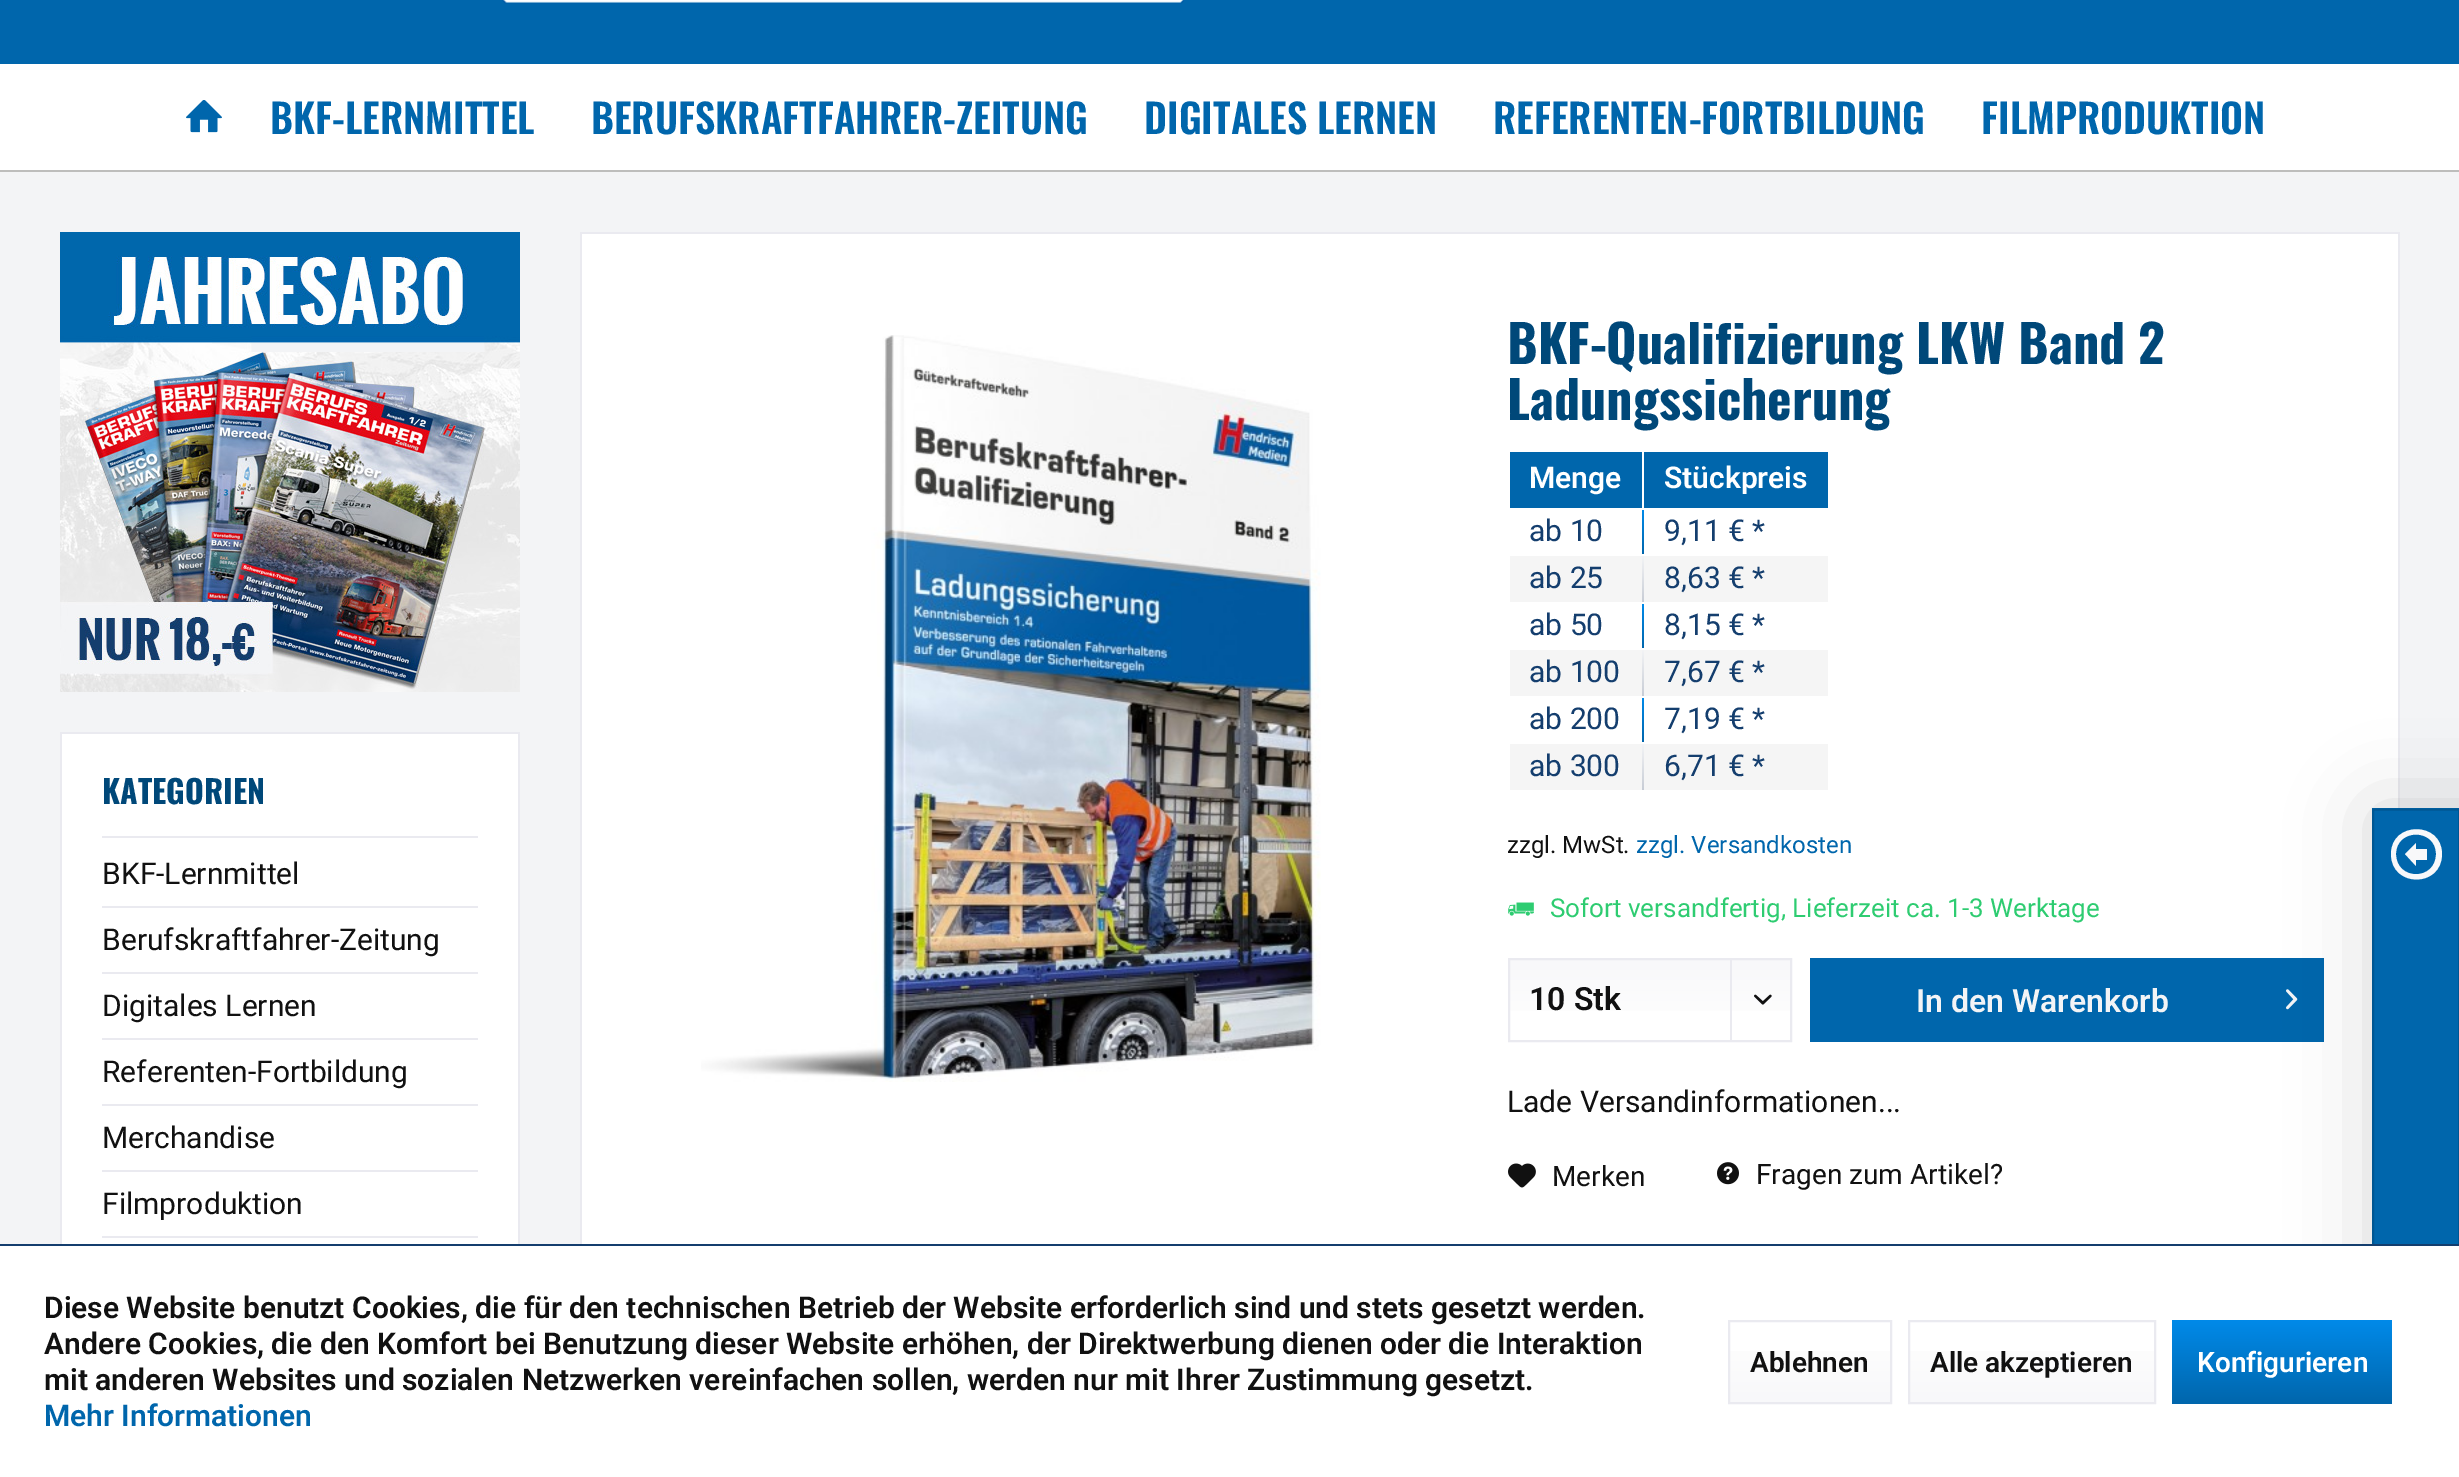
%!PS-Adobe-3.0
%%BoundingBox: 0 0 2459 1477
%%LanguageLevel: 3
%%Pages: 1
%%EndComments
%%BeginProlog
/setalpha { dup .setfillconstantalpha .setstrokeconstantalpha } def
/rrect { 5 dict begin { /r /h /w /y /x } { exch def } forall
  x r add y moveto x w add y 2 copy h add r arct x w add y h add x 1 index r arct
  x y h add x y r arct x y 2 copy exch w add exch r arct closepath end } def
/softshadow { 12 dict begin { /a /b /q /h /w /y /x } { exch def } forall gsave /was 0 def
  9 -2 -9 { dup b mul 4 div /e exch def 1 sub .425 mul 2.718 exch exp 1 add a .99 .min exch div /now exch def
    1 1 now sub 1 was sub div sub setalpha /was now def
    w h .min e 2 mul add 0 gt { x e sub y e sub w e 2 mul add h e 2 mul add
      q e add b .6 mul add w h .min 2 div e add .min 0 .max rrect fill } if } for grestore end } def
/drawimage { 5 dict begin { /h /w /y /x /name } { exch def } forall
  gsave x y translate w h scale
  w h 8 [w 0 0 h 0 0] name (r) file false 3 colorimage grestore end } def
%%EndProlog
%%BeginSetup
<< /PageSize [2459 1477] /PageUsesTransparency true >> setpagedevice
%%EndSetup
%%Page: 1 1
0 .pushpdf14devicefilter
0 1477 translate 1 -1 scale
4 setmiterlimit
0.953 0.957 0.965 setrgbcolor
0 0 2459 1477 rectfill
0 0.4 0.675 setrgbcolor
0 0 2459 64 rectfill
0.741 0.741 0.737 setrgbcolor
0 170 2459 2 rectfill
(images/1.raw) 502 0 682 4 drawimage
1 setgray
0 64 2459 106 rectfill
(images/2.raw) 186 100 36 33 drawimage
(images/3.raw) 60 232 460 460 drawimage
0.918 0.918 0.941 setrgbcolor
60 732 460 2 rectfill
518 732 2 110 rectfill
60 732 2 110 rectfill
1 setgray
62 734 456 510 rectfill
0.918 0.918 0.941 setrgbcolor
102 836 376 2 rectfill
518 842 2 402 rectfill
60 842 2 402 rectfill
102 906 376 2 rectfill
102 972 376 2 rectfill
102 1038 376 2 rectfill
102 1104 376 2 rectfill
102 1170 376 2 rectfill
102 1236 376 2 rectfill
1 setgray
582 234 1816 1010 rectfill
0.918 0.918 0.941 setrgbcolor
580 232 1820 2 rectfill
2398 232 2 576 rectfill
580 232 2 1012 rectfill
(images/4.raw) 701 335 620 747 drawimage
0 0.4 0.675 setrgbcolor
1510 452 132 56 rectfill
1644 452 184 56 rectfill
gsave newpath 1642 510 moveto 1644 510 lineto 1644 554 lineto 1642 554 lineto closepath clip newpath
<< /ShadingType 2 /ColorSpace /DeviceRGB /Coords [1669 510 1669 554] /Extend [true true] /Function << /FunctionType 2 /Domain [0 1] /C0 [0 0.541 0.914] /C1 [0 0.4 0.675] /N 1 >> >> shfill grestore
gsave newpath 1642 556 moveto 1644 556 lineto 1644 602 lineto 1642 602 lineto closepath clip newpath
<< /ShadingType 2 /ColorSpace /DeviceRGB /Coords [1669 556 1669 602] /Extend [true true] /Function << /FunctionType 2 /Domain [0 1] /C0 [0.953 0.957 0.965] /C1 [0.78 0.8 0.835] /N 1 >> >> shfill grestore
0.961 setgray
1510 556 132 46 rectfill
1644 556 184 46 rectfill
gsave newpath 1642 604 moveto 1644 604 lineto 1644 648 lineto 1642 648 lineto closepath clip newpath
<< /ShadingType 2 /ColorSpace /DeviceRGB /Coords [1669 604 1669 648] /Extend [true true] /Function << /FunctionType 2 /Domain [0 1] /C0 [0 0.541 0.914] /C1 [0 0.4 0.675] /N 1 >> >> shfill grestore
gsave newpath 1642 650 moveto 1644 650 lineto 1644 696 lineto 1642 696 lineto closepath clip newpath
<< /ShadingType 2 /ColorSpace /DeviceRGB /Coords [1669 650 1669 696] /Extend [true true] /Function << /FunctionType 2 /Domain [0 1] /C0 [0.953 0.957 0.965] /C1 [0.78 0.8 0.835] /N 1 >> >> shfill grestore
1510 650 132 46 rectfill
1644 650 184 46 rectfill
gsave newpath 1642 698 moveto 1644 698 lineto 1644 742 lineto 1642 742 lineto closepath clip newpath
<< /ShadingType 2 /ColorSpace /DeviceRGB /Coords [1669 698 1669 742] /Extend [true true] /Function << /FunctionType 2 /Domain [0 1] /C0 [0 0.541 0.914] /C1 [0 0.4 0.675] /N 1 >> >> shfill grestore
gsave newpath 1642 744 moveto 1644 744 lineto 1644 790 lineto 1642 790 lineto closepath clip newpath
<< /ShadingType 2 /ColorSpace /DeviceRGB /Coords [1669 744 1669 790] /Extend [true true] /Function << /FunctionType 2 /Domain [0 1] /C0 [0.953 0.957 0.965] /C1 [0.78 0.8 0.835] /N 1 >> >> shfill grestore
1510 744 132 46 rectfill
1644 744 184 46 rectfill
(images/5.raw) 1508 902 26 14 drawimage
gsave newpath 1510 960 moveto 1790 960 lineto 1790 1011 lineto 1510 1011 lineto closepath clip newpath
<< /ShadingType 2 /ColorSpace /DeviceRGB /Coords [1650 960 1650 1040] /Extend [true true] /Function << /FunctionType 2 /Domain [0 1] /C0 [0.973 0.973 0.98] /C1 [1 1 1] /N 1 >> >> shfill grestore
0.918 0.918 0.941 setrgbcolor
2 setlinewidth
1509 959 282 82 rectstroke
1730 960 2 80 rectfill
(images/6.raw) 1754 994 18 11 drawimage
0 0.4 0.675 setrgbcolor
1810 958 514 84 rectfill
(images/7.raw) 2286 989 12 21 drawimage
(images/8.raw) 1508 1163 28 25 drawimage
(images/9.raw) 1717 1162 22 23 drawimage
0 setgray
2372 808 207 600 0 40 0.15 softshadow
0 0.4 0.675 setrgbcolor
2372 808 87 436 rectfill
0 0.341 0.576 setrgbcolor
newpath 2373 1407.5 moveto 2373 809.5 lineto 2459 809.5 lineto 2459 1407.5 lineto closepath stroke
0.973 0.973 0.98 setrgbcolor
newpath 2442 854 moveto 2442 821 2391 821 2391 854 curveto 2391 888 2442 888 2442 854 curveto closepath 2396 854 moveto 2396 828 2436 828 2436 854 curveto 2436 881 2396 881 2396 854 curveto closepath 2427 860 moveto 2427 849 lineto 2416 849 lineto 2416 843 lineto 2405 854 lineto 2416 866 lineto 2416 860 lineto closepath fill
1 setgray
0 1246 2459 231 rectfill
0.078 0.243 0.431 setrgbcolor
0 1244 2459 2 rectfill
gsave newpath 1730 1351 moveto 1890 1351 lineto 1890 1402 lineto 1730 1402 lineto closepath clip newpath
<< /ShadingType 2 /ColorSpace /DeviceRGB /Coords [1810 1322 1810 1402] /Extend [true true] /Function << /FunctionType 2 /Domain [0 1] /C0 [1 1 1] /C1 [0.973 0.973 0.98] /N 1 >> >> shfill grestore
0.918 0.918 0.941 setrgbcolor
1729 1321 162 82 rectstroke
gsave newpath 1910 1351 moveto 2154 1351 lineto 2154 1402 lineto 1910 1402 lineto closepath clip newpath
<< /ShadingType 2 /ColorSpace /DeviceRGB /Coords [2032 1322 2032 1402] /Extend [true true] /Function << /FunctionType 2 /Domain [0 1] /C0 [1 1 1] /C1 [0.973 0.973 0.98] /N 1 >> >> shfill grestore
1909 1321 246 82 rectstroke
gsave newpath 2172 1320 moveto 2392 1320 lineto 2392 1404 lineto 2172 1404 lineto closepath clip newpath
<< /ShadingType 2 /ColorSpace /DeviceRGB /Coords [2282 1320 2282 1404] /Extend [true true] /Function << /FunctionType 2 /Domain [0 1] /C0 [0 0.541 0.914] /C1 [0 0.4 0.675] /N 1 >> >> shfill grestore
/Oswald-SemiBold [40 0 0 -40 0 0] selectfont
0 0.4 0.675 setrgbcolor
270 134 moveto (BKF-LERNMITTEL) show
591 134 moveto (BERUFSKRAFTFAHRER-ZEITUNG) show
1144 134 moveto (DIGITALES LERNEN) show
1493 134 moveto (REFERENTEN-FORTBILDUNG) show
1981 134 moveto (FILMPRODUKTION) show
/Oswald-Bold [32 0 0 -32 0 0] selectfont
0 0.282 0.475 setrgbcolor
102 804 moveto (KATEGORIEN) show
/Roboto-Regular [30 0 0 -30 0 0] selectfont
0.067 setgray
102 884 moveto (BKF-Lernmittel) show
102 950 moveto (Berufskraftfahrer-Zeitung) show
102 1016 moveto (Digitales Lernen) show
102 1082 moveto (Referenten-Fortbildung) show
102 1148 moveto (Merchandise) show
102 1214 moveto (Filmproduktion) show
/Oswald-Bold [52 0 0 -52 0 0] selectfont
0 0.282 0.475 setrgbcolor
1507 364 moveto (BKF-Qualifizierung LKW Band 2) show
1507 420 moveto (Ladungssicherung) show
/Roboto-SemiBold [30 0 0 -30 0 0] selectfont
1 setgray
1529 488 moveto (Menge) show
1664 488 moveto (Stückpreis) show
/Roboto-Regular [30 0 0 -30 0 0] selectfont
0.078 0.243 0.431 setrgbcolor
1529 541 moveto (ab 10) show
1664 541 moveto (9,11 € *) show
1529 588 moveto (ab 25) show
1664 588 moveto (8,63 € *) show
1529 635 moveto (ab 50) show
1664 635 moveto (8,15 € *) show
1529 682 moveto (ab 100) show
1664 682 moveto (7,67 € *) show
1529 729 moveto (ab 200) show
1664 729 moveto (7,19 € *) show
1529 776 moveto (ab 300) show
1664 776 moveto (6,71 € *) show
/Roboto-Regular [24 0 0 -24 0 0] selectfont
0.067 setgray
1507 853 moveto (zzgl. MwSt.) show
0 0.4 0.675 setrgbcolor
1636 853 moveto (zzgl. Versandkosten) show
/Roboto-Regular [26 0 0 -26 0 0] selectfont
0.18 0.8 0.443 setrgbcolor
1550 917 moveto (Sofort versandfertig, Lieferzeit ca. 1-3 Werktage) show
/Roboto-SemiBold [32 0 0 -32 0 0] selectfont
0.067 setgray
1529 1010 moveto (10 Stk) show
0.953 0.957 0.965 setrgbcolor
1916 1012 moveto (In den Warenkorb) show
/Roboto-Regular [30 0 0 -30 0 0] selectfont
0.067 setgray
1507 1112 moveto (Lade Versandinformationen...) show
/Roboto-Regular [28 0 0 -28 0 0] selectfont
1552 1186 moveto (Merken) show
1756 1184 moveto (Fragen zum Artikel?) show
/Roboto-SemiBold [30 0 0 -30 0 0] selectfont
44 1318 moveto (Diese Website benutzt Cookies, die für den technischen Betrieb der Website erforderlich sind und stets gesetzt werden.) show
44 1354 moveto (Andere Cookies, die den Komfort bei Benutzung dieser Website erhöhen, der Direktwerbung dienen oder die Interaktion) show
44 1390 moveto (mit anderen Websites und sozialen Netzwerken vereinfachen sollen, werden nur mit Ihrer Zustimmung gesetzt.) show
0 0.4 0.675 setrgbcolor
44 1426 moveto (Mehr Informationen) show
/Roboto-SemiBold [28 0 0 -28 0 0] selectfont
0.067 setgray
1750 1372 moveto (Ablehnen) show
1930 1372 moveto (Alle akzeptieren) show
1 setgray
2197 1372 moveto (Konfigurieren) show
.poppdf14devicefilter showpage
%%EOF
